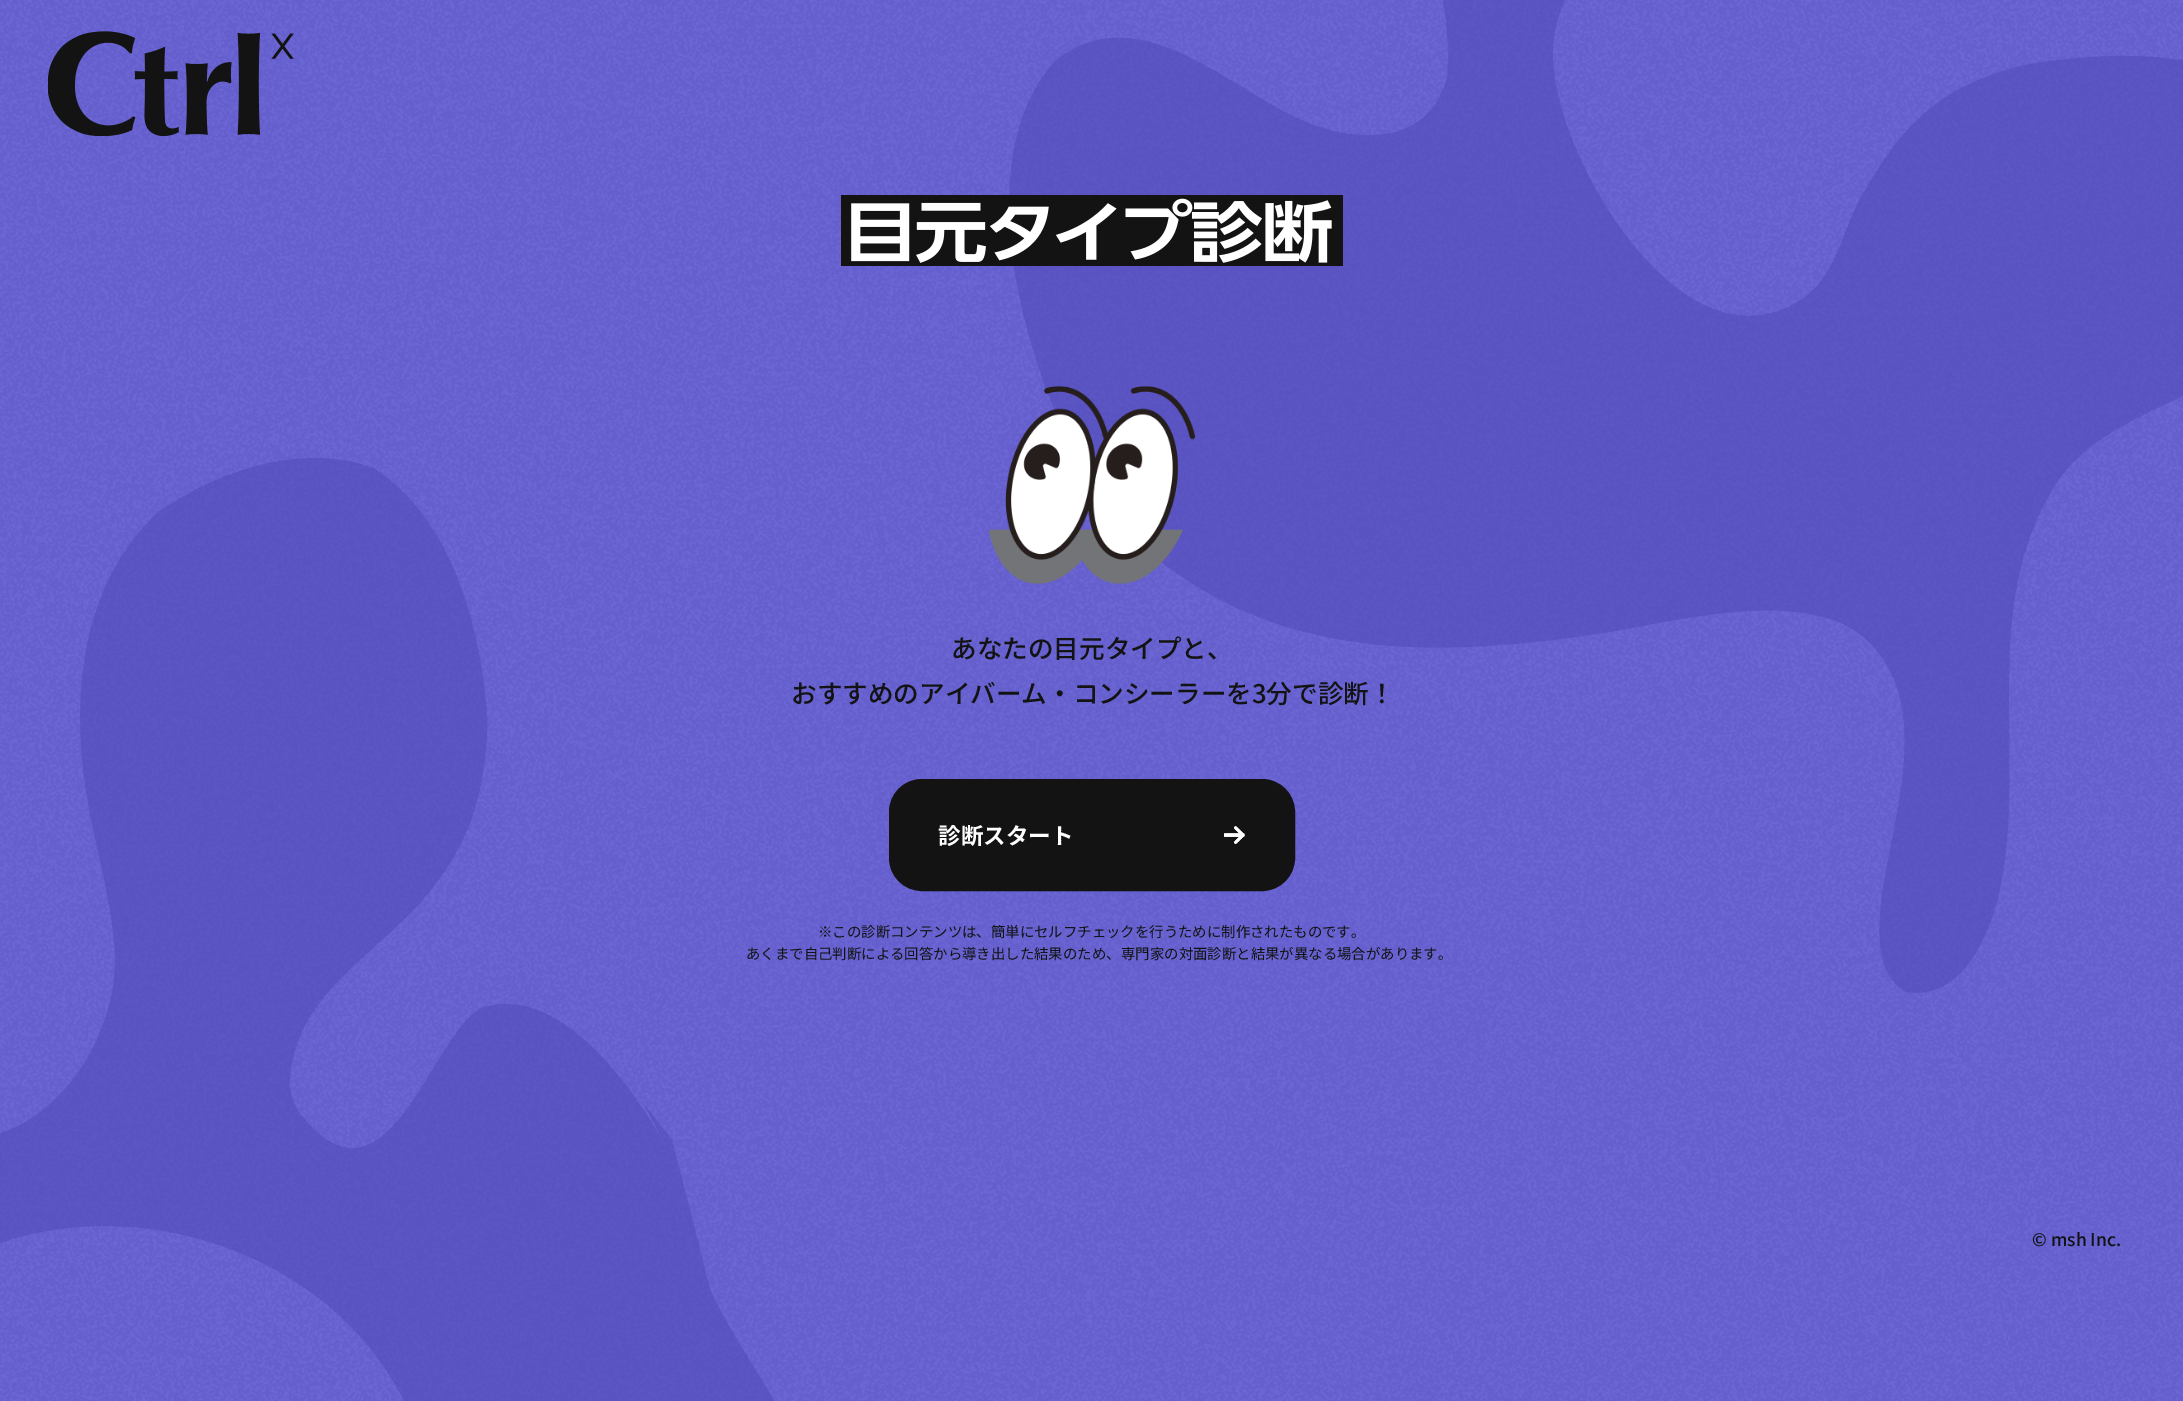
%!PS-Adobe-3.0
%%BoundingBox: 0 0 2183 1401
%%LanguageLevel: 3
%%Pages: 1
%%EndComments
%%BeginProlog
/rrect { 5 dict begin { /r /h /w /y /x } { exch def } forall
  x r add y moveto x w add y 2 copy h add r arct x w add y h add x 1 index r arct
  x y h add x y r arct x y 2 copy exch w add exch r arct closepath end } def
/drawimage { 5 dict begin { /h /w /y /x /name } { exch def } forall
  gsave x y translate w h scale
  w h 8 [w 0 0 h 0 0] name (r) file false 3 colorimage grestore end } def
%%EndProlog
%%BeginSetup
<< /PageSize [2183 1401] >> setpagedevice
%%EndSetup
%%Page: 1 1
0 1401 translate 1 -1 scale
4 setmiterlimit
0.404 0.384 0.827 setrgbcolor
0 0 2183 1401 rectfill
(images/1.raw) 0 0 2183 1401 drawimage
(images/2.raw) 48 31 246 105 drawimage
(images/3.raw) 0 458 775 943 drawimage
(images/4.raw) 1009 0 1174 993 drawimage
(images/5.raw) 841 195 502 71 drawimage
(images/6.raw) 989 386 206 198 drawimage
0.075 setgray
890.5 780.5 403 109 31.5 rrect gsave fill grestore
3 setlinewidth
stroke
(images/7.raw) 1224 826 21 18 drawimage
/NotoSansJP-Medium [25.6 0 0 -25.6 0 0] selectfont
951 658 moveto (あなたの目元タイプと、) show
791 703 moveto (おすすめのアイバーム・コンシーラーを3分で診断！) show
/NotoSansJP-Bold [22.5 0 0 -22.5 0 0] selectfont
1 setgray
938 844 moveto (診断スタート) show
/NotoSansJP-Regular [14.4 0 0 -14.4 0 0] selectfont
0.075 setgray
818 937 moveto (※この診断コンテンツは、簡単にセルフチェックを行うために制作されたものです。) show
746 959 moveto (あくまで自己判断による回答から導き出した結果のため、) show
1121 959 moveto (専門家の対面診断と結果が異なる場合があります。) show
/NotoSansJP-Medium [17.5 0 0 -17.5 0 0] selectfont
2032 1246 moveto (© msh Inc.) show
showpage
%%EOF
